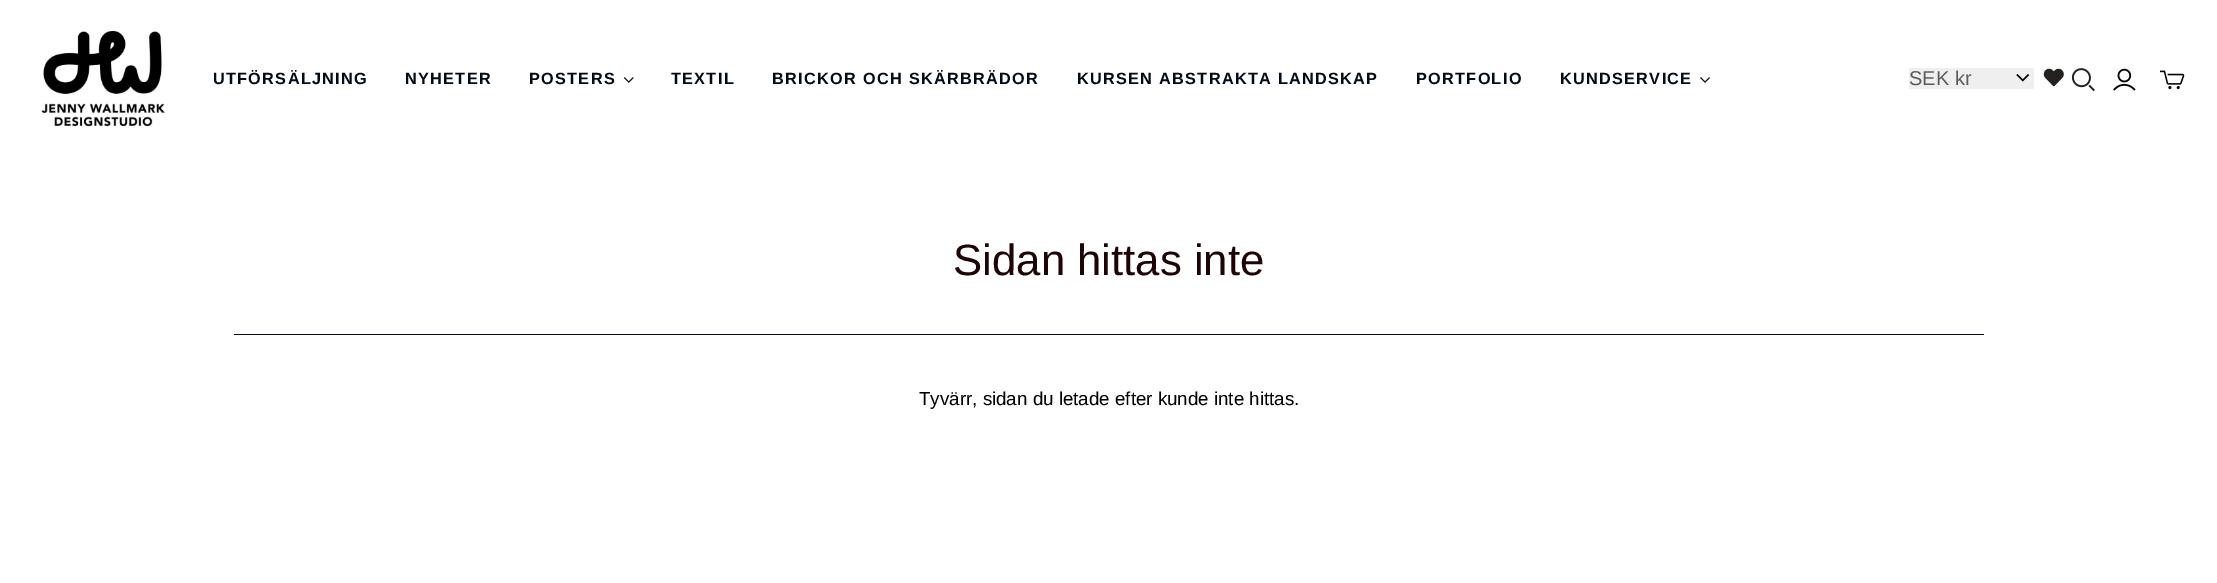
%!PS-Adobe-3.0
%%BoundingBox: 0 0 2217 583
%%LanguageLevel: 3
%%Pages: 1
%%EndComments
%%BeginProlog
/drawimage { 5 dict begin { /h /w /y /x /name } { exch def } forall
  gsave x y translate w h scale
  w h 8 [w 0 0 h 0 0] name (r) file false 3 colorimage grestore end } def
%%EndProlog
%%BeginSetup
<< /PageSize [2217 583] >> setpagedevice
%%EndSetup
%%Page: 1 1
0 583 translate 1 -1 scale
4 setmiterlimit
1 setgray
0 0 2217 583 rectfill
(images/1.raw) 41 30 124 97 drawimage
(images/2.raw) 624 77 10 6 drawimage
(images/3.raw) 1700 77 10 6 drawimage
0.937 setgray
1909 68 125 21 rectfill
(images/4.raw) 2016 74 14 8 drawimage
(images/5.raw) 2043 68 21 19 drawimage
(images/6.raw) 2071 68 24 24 drawimage
(images/7.raw) 2113 68 23 23 drawimage
(images/8.raw) 2160 70 25 20 drawimage
0.004 0.043 0.082 setrgbcolor
234 334 1750 1 rectfill
/LiberationSans-Bold [16.25 0 0 -16.25 0 0] selectfont
213 84 moveto 1.3 0 (UTFÖRSÄLJNING) ashow
405 84 moveto 1.3 0 (NYHETER) ashow
529 84 moveto 1.3 0 (POSTERS) ashow
671 84 moveto 1.3 0 (TEXTIL) ashow
772 84 moveto 1.3 0 (BRICKOR OCH SKÄRBRÄDOR) ashow
1077 84 moveto 1.3 0 (KURSEN ABSTRAKTA LANDSKAP) ashow
1416 84 moveto 1.3 0 (PORTFOLIO) ashow
1560 84 moveto 1.3 0 (KUNDSERVICE) ashow
/LiberationSans-Regular [20 0 0 -20 0 0] selectfont
0.345 0.361 0.376 setrgbcolor
1909 85 moveto (SEK kr) show
/LiberationSans-Regular [43.75 0 0 -43.75 0 0] selectfont
0.118 0.016 0.016 setrgbcolor
953 275 moveto (Sidan hittas inte) show
/LiberationSans-Regular [18.75 0 0 -18.75 0 0] selectfont
0 setgray
919 405 moveto (Tyvärr, sidan du letade efter kunde inte hittas.) show
showpage
%%EOF
